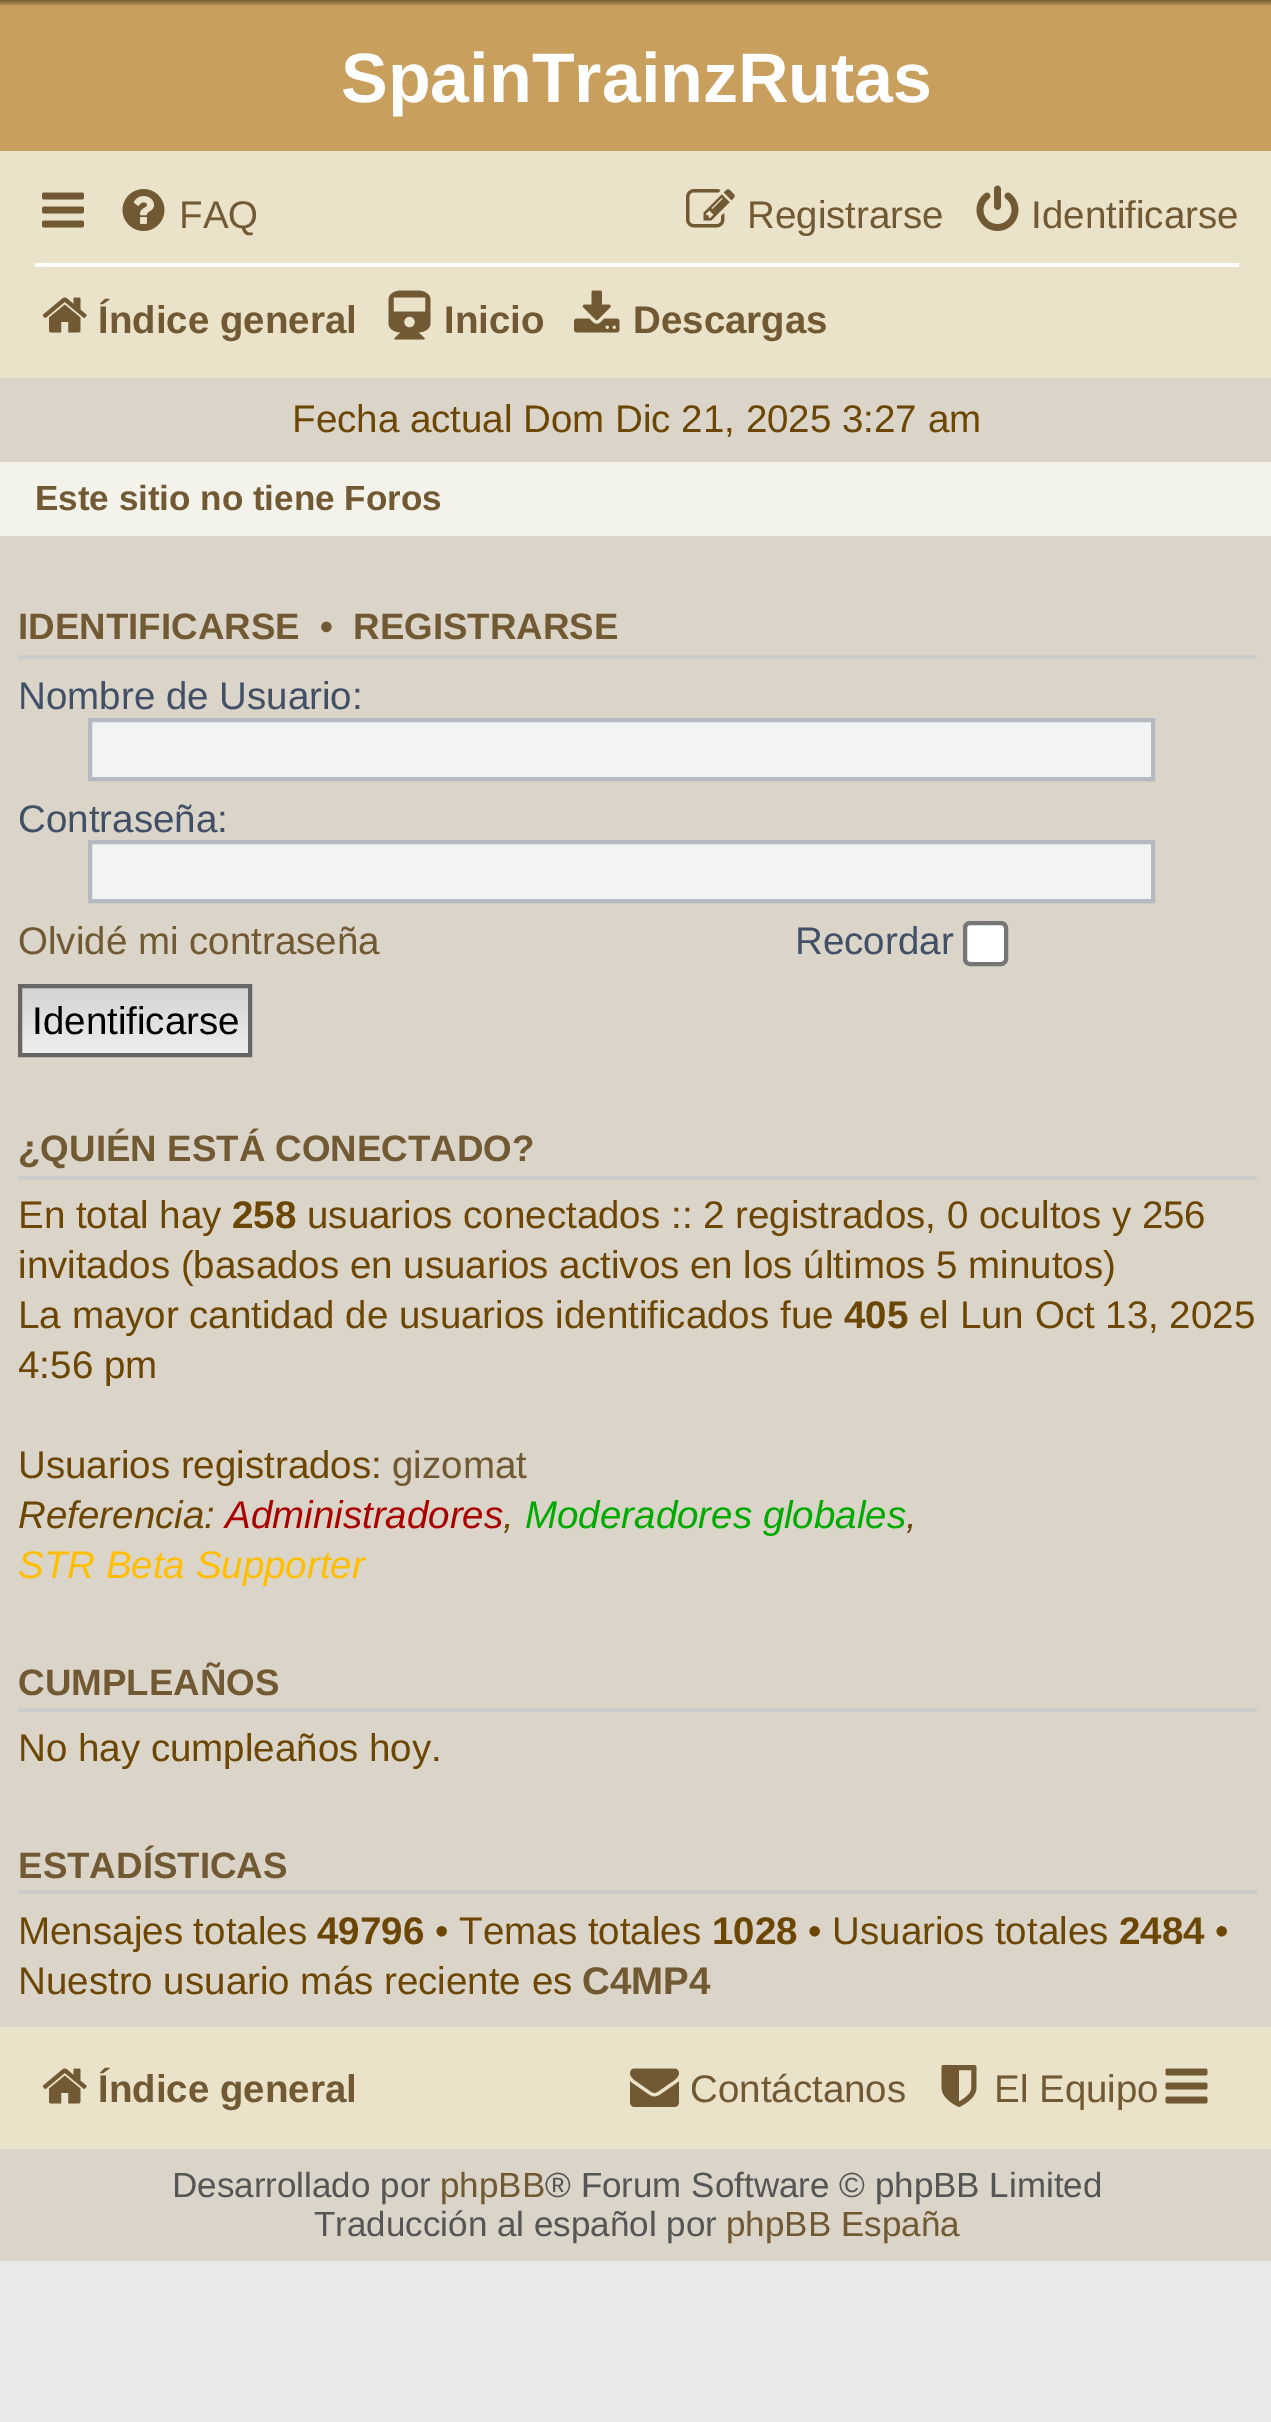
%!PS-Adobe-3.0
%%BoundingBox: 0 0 1271 2422
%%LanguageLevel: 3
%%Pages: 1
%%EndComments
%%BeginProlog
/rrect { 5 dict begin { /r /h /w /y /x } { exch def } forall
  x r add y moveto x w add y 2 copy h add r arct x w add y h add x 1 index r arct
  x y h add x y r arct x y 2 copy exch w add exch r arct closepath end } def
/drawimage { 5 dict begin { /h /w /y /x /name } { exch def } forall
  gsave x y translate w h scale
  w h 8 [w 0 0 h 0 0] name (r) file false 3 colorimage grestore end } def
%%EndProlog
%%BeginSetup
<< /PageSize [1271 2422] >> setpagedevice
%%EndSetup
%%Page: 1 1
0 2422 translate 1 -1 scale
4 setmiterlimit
0.914 setgray
0 0 1271 2422 rectfill
0.859 0.835 0.788 setrgbcolor
0 378 1271 1883 rectfill
gsave newpath 0 0 moveto 1271 0 lineto 1271 151 lineto 0 151 lineto closepath clip newpath
<< /ShadingType 2 /ColorSpace /DeviceRGB /Coords [637 0 637 322] /Extend [true true] /Function << /FunctionType 3 /Domain [0 1] /Functions [<< /FunctionType 2 /Domain [0 1] /C0 [0.443 0.353 0.2] /C1 [0.788 0.624 0.369] /N 1 >> << /FunctionType 2 /Domain [0 1] /C0 [0.788 0.624 0.369] /C1 [0.788 0.624 0.369] /N 1 >>] /Bounds [0.02] /Encode [0 1 0 1] >> >> shfill grestore
0.922 0.886 0.792 setrgbcolor
0 151 1271 227 rectfill
(images/1.raw) 42 192 42 36 drawimage
(images/2.raw) 122 189 43 42 drawimage
(images/3.raw) 686 189 49 39 drawimage
(images/4.raw) 976 185 43 46 drawimage
1 setgray
35 263 1204 4 rectfill
(images/5.raw) 42 297 45 36 drawimage
(images/6.raw) 388 290 43 50 drawimage
(images/7.raw) 574 290 46 43 drawimage
0.953 0.953 0.925 setrgbcolor
0 462 1271 74 rectfill
0.8 setgray
18 655 1239 4 rectfill
0.949 0.953 0.953 setrgbcolor
newpath 90 720 moveto 1153 720 lineto 1153 779 lineto 90 779 lineto closepath gsave fill grestore
0.706 0.729 0.753 setrgbcolor
4 setlinewidth
stroke
0.949 0.953 0.953 setrgbcolor
newpath 90 842 moveto 1153 842 lineto 1153 901 lineto 90 901 lineto closepath gsave fill grestore
0.706 0.729 0.753 setrgbcolor
stroke
1 setgray
965 923 41 41 5 rrect gsave fill grestore
0.463 setgray
stroke
gsave newpath 22 988 moveto 248 988 lineto 248 1053 lineto 22 1053 lineto closepath clip newpath
<< /ShadingType 2 /ColorSpace /DeviceRGB /Coords [135 987 135 1054] /Extend [true true] /Function << /FunctionType 2 /Domain [0 1] /C0 [0.824 0.824 0.824] /C1 [0.937 0.937 0.937] /N 1 >> >> shfill grestore
0.4 setgray
20 986 230 69 rectstroke
0.8 setgray
18 1176 1239 4 rectfill
18 1708 1239 4 rectfill
18 1890 1239 4 rectfill
0.922 0.886 0.792 setrgbcolor
0 2027 1271 122 rectfill
(images/5.raw) 42 2068 45 36 drawimage
(images/8.raw) 630 2068 49 39 drawimage
(images/9.raw) 941 2065 36 42 drawimage
(images/10.raw) 1165 2068 43 36 drawimage
/LiberationSans-Bold [70 0 0 -70 0 0] selectfont
1 setgray
341 102 moveto (SpainTrainzRutas) show
/LiberationSans-Regular [38.5 0 0 -38.5 0 0] selectfont
0.443 0.353 0.2 setrgbcolor
179 228 moveto (FAQ) show
747 228 moveto (Registrarse) show
1031 228 moveto (Identificarse) show
/LiberationSans-Bold [38.5 0 0 -38.5 0 0] selectfont
98 333 moveto (Índice general) show
444 333 moveto (Inicio) show
633 333 moveto (Descargas) show
/LiberationSans-Regular [38.5 0 0 -38.5 0 0] selectfont
0.42 0.275 0.016 setrgbcolor
292 432 moveto (Fecha actual Dom Dic 21, 2025 3:27 am) show
/LiberationSans-Bold [35 0 0 -35 0 0] selectfont
0.443 0.353 0.2 setrgbcolor
35 510 moveto (Este sitio no tiene Foros) show
/LiberationSans-Bold [36.75 0 0 -36.75 0 0] selectfont
18 639 moveto (IDENTIFICARSE) show
320 639 moveto (•) show
353 639 moveto (REGISTRARSE) show
/LiberationSans-Regular [38.5 0 0 -38.5 0 0] selectfont
0.259 0.314 0.404 setrgbcolor
18 709 moveto (Nombre de Usuario:) show
18 832 moveto (Contraseña:) show
0.443 0.353 0.2 setrgbcolor
18 954 moveto (Olvidé mi contraseña) show
0.259 0.314 0.404 setrgbcolor
795 954 moveto (Recordar) show
0 setgray
32 1034 moveto (Identificarse) show
/LiberationSans-Bold [36.75 0 0 -36.75 0 0] selectfont
0.443 0.353 0.2 setrgbcolor
18 1161 moveto (¿QUIÉN ESTÁ CONECTADO?) show
/LiberationSans-Regular [38.5 0 0 -38.5 0 0] selectfont
0.42 0.275 0.016 setrgbcolor
18 1228 moveto (En total hay) show
/LiberationSans-Bold [38.5 0 0 -38.5 0 0] selectfont
232 1228 moveto (258) show
/LiberationSans-Regular [38.5 0 0 -38.5 0 0] selectfont
307 1228 moveto (usuarios conectados :: 2 registrados, 0 ocultos y 256) show
18 1278 moveto (invitados \(basados en usuarios activos en los últimos 5 minutos\)) show
18 1328 moveto (La mayor cantidad de usuarios identificados fue) show
/LiberationSans-Bold [38.5 0 0 -38.5 0 0] selectfont
844 1328 moveto (405) show
/LiberationSans-Regular [38.5 0 0 -38.5 0 0] selectfont
919 1328 moveto (el Lun Oct 13, 2025) show
18 1378 moveto (4:56 pm) show
18 1478 moveto (Usuarios registrados:) show
0.443 0.353 0.2 setrgbcolor
392 1478 moveto (gizomat) show
/LiberationSans-Italic [38.5 0 0 -38.5 0 0] selectfont
0.42 0.275 0.016 setrgbcolor
18 1528 moveto (Referencia:) show
0.667 0 0 setrgbcolor
225 1528 moveto (Administradores) show
0.42 0.275 0.016 setrgbcolor
503 1528 moveto (,) show
0 0.667 0 setrgbcolor
525 1528 moveto (Moderadores globales) show
0.42 0.275 0.016 setrgbcolor
906 1528 moveto (,) show
1 0.749 0 setrgbcolor
18 1578 moveto (STR Beta Supporter) show
/LiberationSans-Bold [36.75 0 0 -36.75 0 0] selectfont
0.443 0.353 0.2 setrgbcolor
18 1695 moveto (CUMPLEAÑOS) show
/LiberationSans-Regular [38.5 0 0 -38.5 0 0] selectfont
0.42 0.275 0.016 setrgbcolor
18 1761 moveto (No hay cumpleaños hoy.) show
/LiberationSans-Bold [36.75 0 0 -36.75 0 0] selectfont
0.443 0.353 0.2 setrgbcolor
18 1878 moveto (ESTADÍSTICAS) show
/LiberationSans-Regular [38.5 0 0 -38.5 0 0] selectfont
0.42 0.275 0.016 setrgbcolor
18 1944 moveto (Mensajes totales) show
/LiberationSans-Bold [38.5 0 0 -38.5 0 0] selectfont
317 1944 moveto (49796) show
/LiberationSans-Regular [38.5 0 0 -38.5 0 0] selectfont
435 1944 moveto (• Temas totales) show
/LiberationSans-Bold [38.5 0 0 -38.5 0 0] selectfont
712 1944 moveto (1028) show
/LiberationSans-Regular [38.5 0 0 -38.5 0 0] selectfont
808 1944 moveto (• Usuarios totales) show
/LiberationSans-Bold [38.5 0 0 -38.5 0 0] selectfont
1119 1944 moveto (2484) show
/LiberationSans-Regular [38.5 0 0 -38.5 0 0] selectfont
1215 1944 moveto (•) show
18 1994 moveto (Nuestro usuario más reciente es) show
/LiberationSans-Bold [38.5 0 0 -38.5 0 0] selectfont
0.443 0.353 0.2 setrgbcolor
582 1994 moveto (C4MP4) show
98 2102 moveto (Índice general) show
/LiberationSans-Regular [38.5 0 0 -38.5 0 0] selectfont
690 2102 moveto (Contáctanos) show
994 2102 moveto (El Equipo) show
/LiberationSans-Regular [35 0 0 -35 0 0] selectfont
0.333 setgray
172 2197 moveto (Desarrollado por) show
0.443 0.353 0.2 setrgbcolor
440 2197 moveto (phpBB) show
0.333 setgray
545 2197 moveto (® Forum Software © phpBB Limited) show
314 2236 moveto (Traducción al español por) show
0.443 0.353 0.2 setrgbcolor
726 2236 moveto (phpBB España) show
showpage
%%EOF
